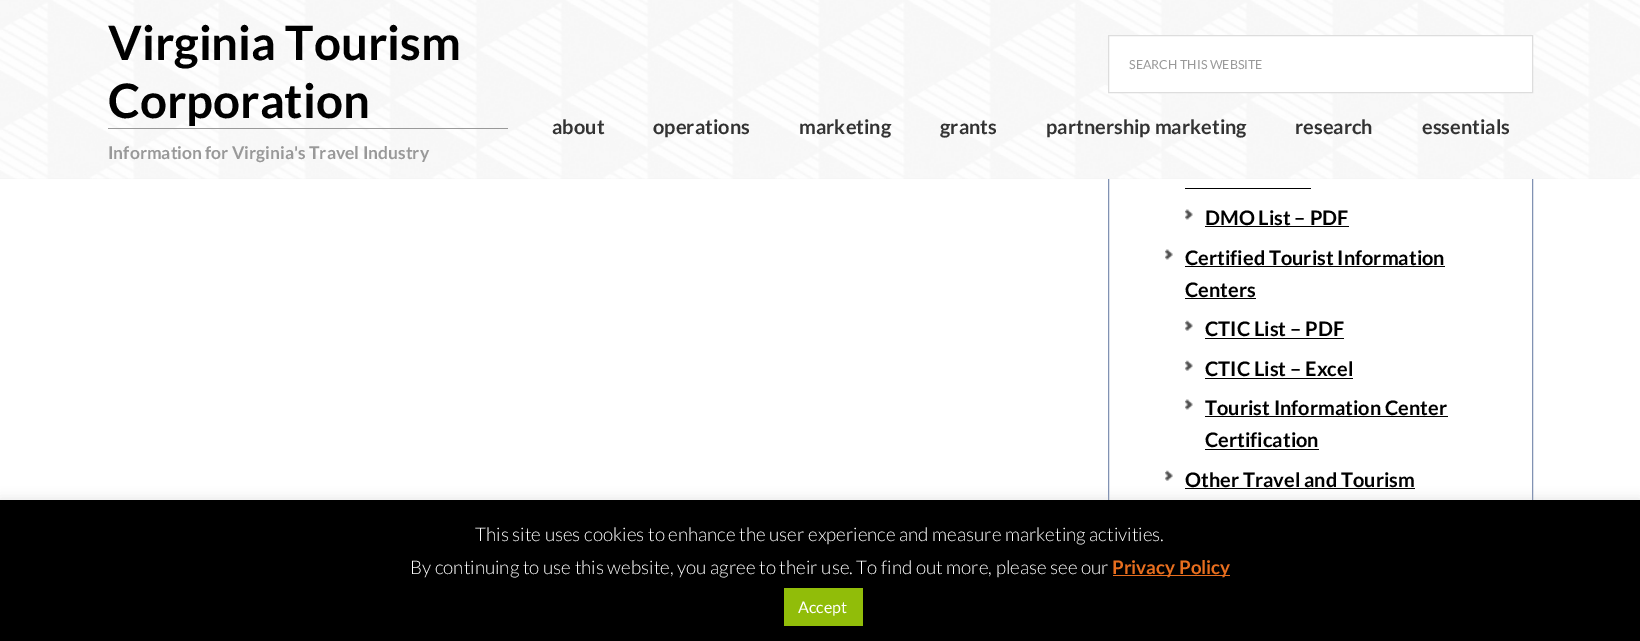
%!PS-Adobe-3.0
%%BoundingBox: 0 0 1640 641
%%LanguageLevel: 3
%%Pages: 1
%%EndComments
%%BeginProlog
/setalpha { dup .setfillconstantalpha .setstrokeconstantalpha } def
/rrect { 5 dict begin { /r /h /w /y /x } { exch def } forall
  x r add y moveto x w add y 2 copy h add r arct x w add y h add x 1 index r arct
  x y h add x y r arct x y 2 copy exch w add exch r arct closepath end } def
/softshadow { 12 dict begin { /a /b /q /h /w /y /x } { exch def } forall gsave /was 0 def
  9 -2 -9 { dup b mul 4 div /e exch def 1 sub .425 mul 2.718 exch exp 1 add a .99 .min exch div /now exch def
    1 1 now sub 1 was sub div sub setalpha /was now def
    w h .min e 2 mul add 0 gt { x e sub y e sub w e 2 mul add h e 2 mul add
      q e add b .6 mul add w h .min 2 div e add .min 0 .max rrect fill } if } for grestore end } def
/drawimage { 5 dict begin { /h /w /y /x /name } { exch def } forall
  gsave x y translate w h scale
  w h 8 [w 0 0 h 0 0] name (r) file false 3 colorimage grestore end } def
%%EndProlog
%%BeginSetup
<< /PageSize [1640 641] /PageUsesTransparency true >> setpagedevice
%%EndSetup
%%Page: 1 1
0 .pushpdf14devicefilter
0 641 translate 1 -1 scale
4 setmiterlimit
1 setgray
0 0 1640 641 rectfill
0.506 0.573 0.702 setrgbcolor
1108.5 -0.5 424 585 rectstroke
(images/1.raw) 0 0 1640 179 drawimage
0.6 setgray
108 128 400 1 rectfill
1 setgray
newpath 1108.5 35.5 moveto 1532.5 35.5 lineto 1532.5 92.5 lineto 1108.5 92.5 lineto closepath gsave fill grestore
0.867 setgray
stroke
0 setgray
1185 188 126 1 rectfill
(images/2.raw) 1185 209 8 11 drawimage
1205 226 144 1 rectfill
(images/3.raw) 1165 249 8 11 drawimage
1185 266 260 1 rectfill
1185 298 71 1 rectfill
(images/4.raw) 1185 320 8 11 drawimage
1205 338 139 1 rectfill
(images/4.raw) 1185 360 8 11 drawimage
1205 378 148 1 rectfill
(images/2.raw) 1185 399 8 11 drawimage
1205 416 243 1 rectfill
1205 449 114 1 rectfill
(images/5.raw) 1165 470 8 11 drawimage
1185 488 230 1 rectfill
0.675 0.671 0.671 setrgbcolor
0 499 1640 141 0 6 0.3 softshadow
0 setgray
0 500 1640 141 rectfill
0.91 0.431 0.118 setrgbcolor
1113 575 117 1 rectfill
0.569 0.741 0.035 setrgbcolor
784 588 79 38 rectfill
/Lato-Bold [47.5 0 0 -47.5 0 0] selectfont
0 setgray
108 60 moveto (Virginia Tourism) show
108 118 moveto (Corporation) show
/Lato-Bold [17.5 0 0 -17.5 0 0] selectfont
0.6 setgray
108 159 moveto (Information for Virginia's Travel Industry) show
/Lato-Regular [12.5 0 0 -12.5 0 0] selectfont
1129 69 moveto (SEARCH THIS WEBSITE) show
/Lato-Bold [20 0 0 -20 0 0] selectfont
0.2 setgray
552 134 moveto (about) show
653 134 moveto (operations) show
799 134 moveto (marketing) show
940 134 moveto (grants) show
1046 134 moveto (partnership marketing) show
1295 134 moveto (research) show
1422 134 moveto (essentials) show
0 setgray
1205 225 moveto (DMO List – PDF) show
1185 265 moveto (Certified Tourist Information) show
1185 297 moveto (Centers) show
1205 336 moveto (CTIC List – PDF) show
1205 376 moveto (CTIC List – Excel) show
1205 415 moveto (Tourist Information Center) show
1205 447 moveto (Certification) show
1185 487 moveto (Other Travel and Tourism) show
/Lato-Light [18.75 0 0 -18.75 0 0] selectfont
1 setgray
475 541 moveto (This site uses cookies to enhance the user experience and measure marketing activities.) show
410 574 moveto (By continuing to use this website, you agree to their use. To find out more, please see our) show
/Lato-Bold [18.75 0 0 -18.75 0 0] selectfont
0.91 0.431 0.118 setrgbcolor
1112 574 moveto (Privacy Policy) show
/Lato-Regular [16 0 0 -16 0 0] selectfont
1 setgray
798 613 moveto (Accept) show
.poppdf14devicefilter showpage
%%EOF
